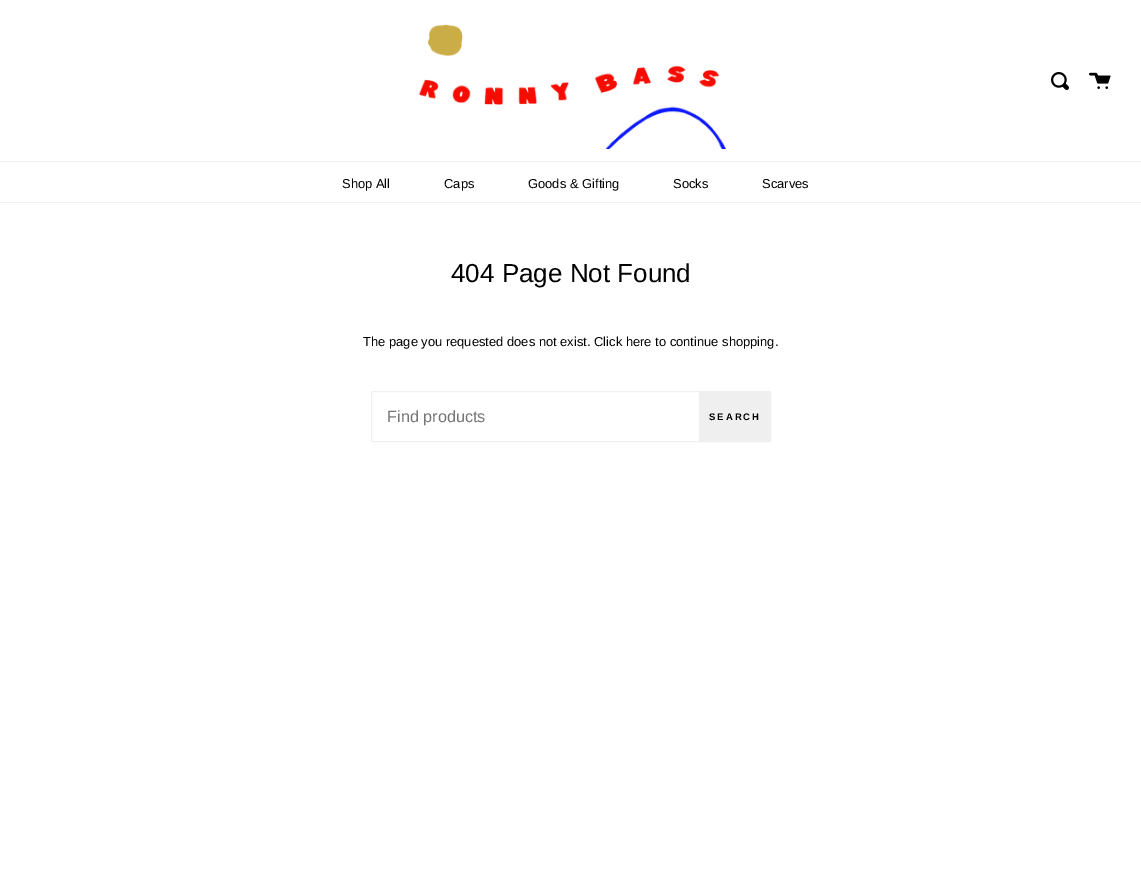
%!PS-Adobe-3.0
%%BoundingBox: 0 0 1141 885
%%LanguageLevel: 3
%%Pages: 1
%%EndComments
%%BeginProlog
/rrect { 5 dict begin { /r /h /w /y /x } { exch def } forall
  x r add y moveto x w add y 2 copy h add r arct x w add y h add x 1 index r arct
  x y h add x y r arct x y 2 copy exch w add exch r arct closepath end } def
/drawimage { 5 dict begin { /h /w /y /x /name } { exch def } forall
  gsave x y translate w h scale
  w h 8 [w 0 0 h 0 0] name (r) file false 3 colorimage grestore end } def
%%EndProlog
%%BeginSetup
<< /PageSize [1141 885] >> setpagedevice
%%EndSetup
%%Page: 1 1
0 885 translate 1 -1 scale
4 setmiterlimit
1 setgray
0 0 1141 885 rectfill
(images/1.raw) 418 24 308 125 drawimage
(images/2.raw) 1051 72 18 18 drawimage
(images/3.raw) 1089 72 22 17 drawimage
0.941 setgray
0 161 1141 1 rectfill
0 202 1141 1 rectfill
371.5 391.5 399 50 1.5 rrect stroke
0.937 setgray
699 391 72 51 rectfill
/LiberationSans-Regular [12.95 0 0 -12.95 0 0] selectfont
0 setgray
342 188 moveto (Shop All) show
444 188 moveto (Caps) show
528 188 moveto (Goods & Gifting) show
673 188 moveto (Socks) show
762 188 moveto (Scarves) show
/LiberationSans-Regular [26 0 0 -26 0 0] selectfont
451 282 moveto (404 Page Not Found) show
/LiberationSans-Regular [12.95 0 0 -12.95 0 0] selectfont
363 346 moveto (The page you requested does not exist. Click here to continue shopping.) show
/LiberationSans-Regular [16.25 0 0 -16.25 0 0] selectfont
0.459 setgray
387 422 moveto (Find products) show
/LiberationSans-Bold [9.5 0 0 -9.5 0 0] selectfont
0 setgray
709 420 moveto 2 0 (SEARCH) ashow
showpage
%%EOF
